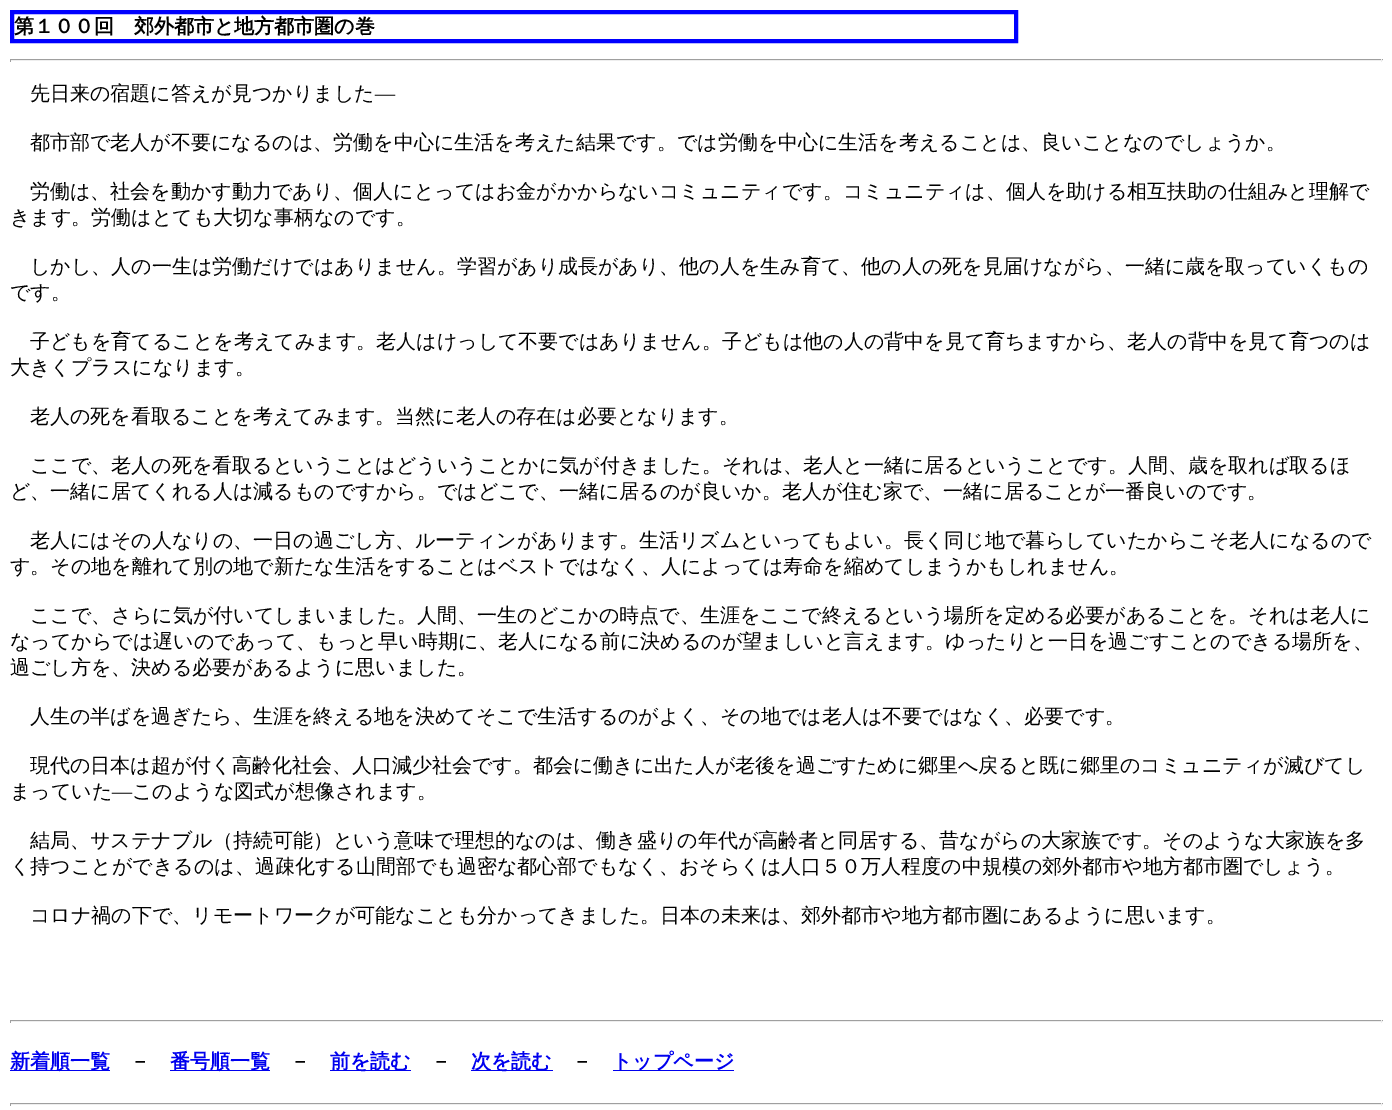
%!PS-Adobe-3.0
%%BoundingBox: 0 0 1392 1110
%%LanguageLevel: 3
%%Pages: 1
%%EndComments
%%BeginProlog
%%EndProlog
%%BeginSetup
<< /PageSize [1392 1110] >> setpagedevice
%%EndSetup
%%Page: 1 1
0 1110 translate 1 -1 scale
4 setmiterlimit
1 setgray
0 0 1392 1110 rectfill
0 0 1 setrgbcolor
4 setlinewidth
12 12 1004 29 rectstroke
0.624 setgray
10 59 1373 1 rectfill
0.933 setgray
1381 59 1 3 rectfill
10 60 1373 1 rectfill
0.624 setgray
10 59 1 3 rectfill
10 1020 1373 1 rectfill
0.933 setgray
1381 1020 1 3 rectfill
10 1021 1373 1 rectfill
0.624 setgray
10 1020 1 3 rectfill
0 0 0.933 setrgbcolor
10 1070 100 1 rectfill
170 1070 100 1 rectfill
330 1070 81 1 rectfill
471 1070 82 1 rectfill
613 1070 121 1 rectfill
0.624 setgray
10 1103 1373 1 rectfill
0.933 setgray
1381 1103 1 3 rectfill
10 1104 1373 1 rectfill
0.624 setgray
10 1103 1 3 rectfill
/WenQuanYiZenHei-Bold [20 0 0 -20 0 0] selectfont
0 setgray
14 33 moveto (第１００回　郊外都市と地方都市圏の巻) show
/WenQuanYiZenHei-Medium [20 0 0 -20 0 0] selectfont
30 100 moveto (先日来の宿題に答えが見つかりました) show
/LiberationSerif-Regular [20 0 0 -20 0 0] selectfont
375 100 moveto (―) show
/WenQuanYiZenHei-Medium [20 0 0 -20 0 0] selectfont
30 149 moveto (都市部で老人が不要になるのは、労働を中心に生活を考えた結果です。では労働を中心に生活を考えることは、良いことなのでしょうか。) show
30 198 moveto (労働は、社会を動かす動力であり、個人にとってはお金がかからないコミュニティです。コミュニティは、個人を助ける相互扶助の仕組みと理解で) show
10 224 moveto (きます。労働はとても大切な事柄なのです。) show
30 273 moveto (しかし、人の一生は労働だけではありません。学習があり成長があり、他の人を生み育て、他の人の死を見届けながら、一緒に歳を取っていくもの) show
10 299 moveto (です。) show
30 348 moveto (子どもを育てることを考えてみます。老人はけっして不要ではありません。子どもは他の人の背中を見て育ちますから、老人の背中を見て育つのは) show
10 374 moveto (大きくプラスになります。) show
30 423 moveto (老人の死を看取ることを考えてみます。当然に老人の存在は必要となります。) show
30 472 moveto (ここで、老人の死を看取るということはどういうことかに気が付きました。それは、老人と一緒に居るということです。人間、歳を取れば取るほ) show
10 498 moveto (ど、一緒に居てくれる人は減るものですから。ではどこで、一緒に居るのが良いか。老人が住む家で、一緒に居ることが一番良いのです。) show
30 547 moveto (老人にはその人なりの、一日の過ごし方、ルーティンがあります。生活リズムといってもよい。長く同じ地で暮らしていたからこそ老人になるので) show
10 573 moveto (す。その地を離れて別の地で新たな生活をすることはベストではなく、人によっては寿命を縮めてしまうかもしれません。) show
30 622 moveto (ここで、さらに気が付いてしまいました。人間、一生のどこかの時点で、生涯をここで終えるという場所を定める必要があることを。それは老人に) show
10 648 moveto (なってからでは遅いのであって、もっと早い時期に、老人になる前に決めるのが望ましいと言えます。ゆったりと一日を過ごすことのできる場所を、) show
10 674 moveto (過ごし方を、決める必要があるように思いました。) show
30 723 moveto (人生の半ばを過ぎたら、生涯を終える地を決めてそこで生活するのがよく、その地では老人は不要ではなく、必要です。) show
30 772 moveto (現代の日本は超が付く高齢化社会、人口減少社会です。都会に働きに出た人が老後を過ごすために郷里へ戻ると既に郷里のコミュニティが滅びてし) show
10 798 moveto (まっていた) show
/LiberationSerif-Regular [20 0 0 -20 0 0] selectfont
112 798 moveto (―) show
/WenQuanYiZenHei-Medium [20 0 0 -20 0 0] selectfont
132 798 moveto (このような図式が想像されます。) show
30 847 moveto (結局、サステナブル（持続可能）という意味で理想的なのは、働き盛りの年代が高齢者と同居する、昔ながらの大家族です。そのような大家族を多) show
10 873 moveto (く持つことができるのは、過疎化する山間部でも過密な都心部でもなく、おそらくは人口５０万人程度の中規模の郊外都市や地方都市圏でしょう。) show
30 922 moveto (コロナ禍の下で、リモートワークが可能なことも分かってきました。日本の未来は、郊外都市や地方都市圏にあるように思います。) show
/WenQuanYiZenHei-Bold [20 0 0 -20 0 0] selectfont
0 0 0.933 setrgbcolor
10 1068 moveto (新着順一覧) show
0 setgray
130 1068 moveto (－) show
0 0 0.933 setrgbcolor
170 1068 moveto (番号順一覧) show
0 setgray
290 1068 moveto (－) show
0 0 0.933 setrgbcolor
330 1068 moveto (前を読む) show
0 setgray
431 1068 moveto (－) show
0 0 0.933 setrgbcolor
471 1068 moveto (次を読む) show
0 setgray
572 1068 moveto (－) show
0 0 0.933 setrgbcolor
612 1068 moveto (トップページ) show
showpage
%%EOF
